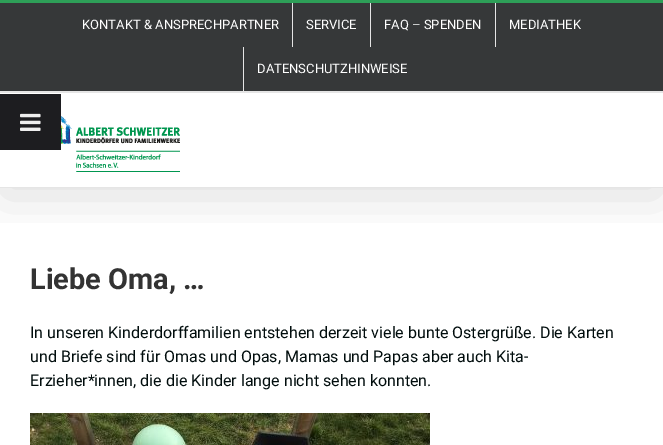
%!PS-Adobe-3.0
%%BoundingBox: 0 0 663 445
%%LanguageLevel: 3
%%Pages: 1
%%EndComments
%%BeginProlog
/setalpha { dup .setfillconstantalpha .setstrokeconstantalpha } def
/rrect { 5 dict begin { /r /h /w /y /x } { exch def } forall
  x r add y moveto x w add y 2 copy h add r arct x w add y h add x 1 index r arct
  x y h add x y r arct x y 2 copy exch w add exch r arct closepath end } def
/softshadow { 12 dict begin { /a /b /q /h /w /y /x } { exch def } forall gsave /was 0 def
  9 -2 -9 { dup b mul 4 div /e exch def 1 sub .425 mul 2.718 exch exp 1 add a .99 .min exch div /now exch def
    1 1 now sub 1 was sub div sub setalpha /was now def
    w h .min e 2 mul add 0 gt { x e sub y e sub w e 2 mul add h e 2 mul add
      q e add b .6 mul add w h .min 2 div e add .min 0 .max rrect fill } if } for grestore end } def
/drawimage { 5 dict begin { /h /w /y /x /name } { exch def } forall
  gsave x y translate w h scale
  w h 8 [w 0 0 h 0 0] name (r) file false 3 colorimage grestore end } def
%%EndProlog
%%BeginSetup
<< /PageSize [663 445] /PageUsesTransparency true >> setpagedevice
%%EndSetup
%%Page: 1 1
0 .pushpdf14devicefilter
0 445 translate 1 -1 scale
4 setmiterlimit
1 setgray
0 0 663 445 rectfill
gsave
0 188 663 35 rectclip
0 setgray
2 12 659 184 0 25 0.14 softshadow
grestore
0.114 0.114 0.125 setrgbcolor
0 94 61 56 rectfill
(images/1.raw) 20 113 21 18 drawimage
0.212 0.22 0.224 setrgbcolor
0 3 663 88 rectfill
0.18 0.624 0.345 setrgbcolor
0 0 663 3 rectfill
0.898 setgray
0 91 663 2 rectfill
292 3 1 44 rectfill
370 3 1 44 rectfill
495 3 1 44 rectfill
243 47 1 44 rectfill
0 187 663 1 rectfill
(images/2.raw) 61 116 119 56 drawimage
(images/3.raw) 30 413 400 32 drawimage
/Roboto-Regular [13 0 0 -13 0 0] selectfont
1 setgray
82 29 moveto (KONTAKT & ANSPRECHPARTNER) show
306 29 moveto (SERVICE) show
384 29 moveto (FAQ – SPENDEN) show
509 29 moveto (MEDIATHEK) show
257 73 moveto (DATENSCHUTZHINWEISE) show
/Roboto-Bold [29 0 0 -29 0 0] selectfont
0.2 setgray
30 289 moveto (Liebe Oma, …) show
/Roboto-Regular [16 0 0 -16 0 0] selectfont
0.004 0.051 0.051 setrgbcolor
30 338 moveto (In unseren Kinderdorffamilien entstehen derzeit viele bunte Ostergrüße. Die Karten) show
30 362 moveto (und Briefe sind für Omas und Opas, Mamas und Papas aber auch Kita-) show
30 386 moveto (Erzieher*innen, die die Kinder lange nicht sehen konnten.) show
.poppdf14devicefilter showpage
%%EOF
